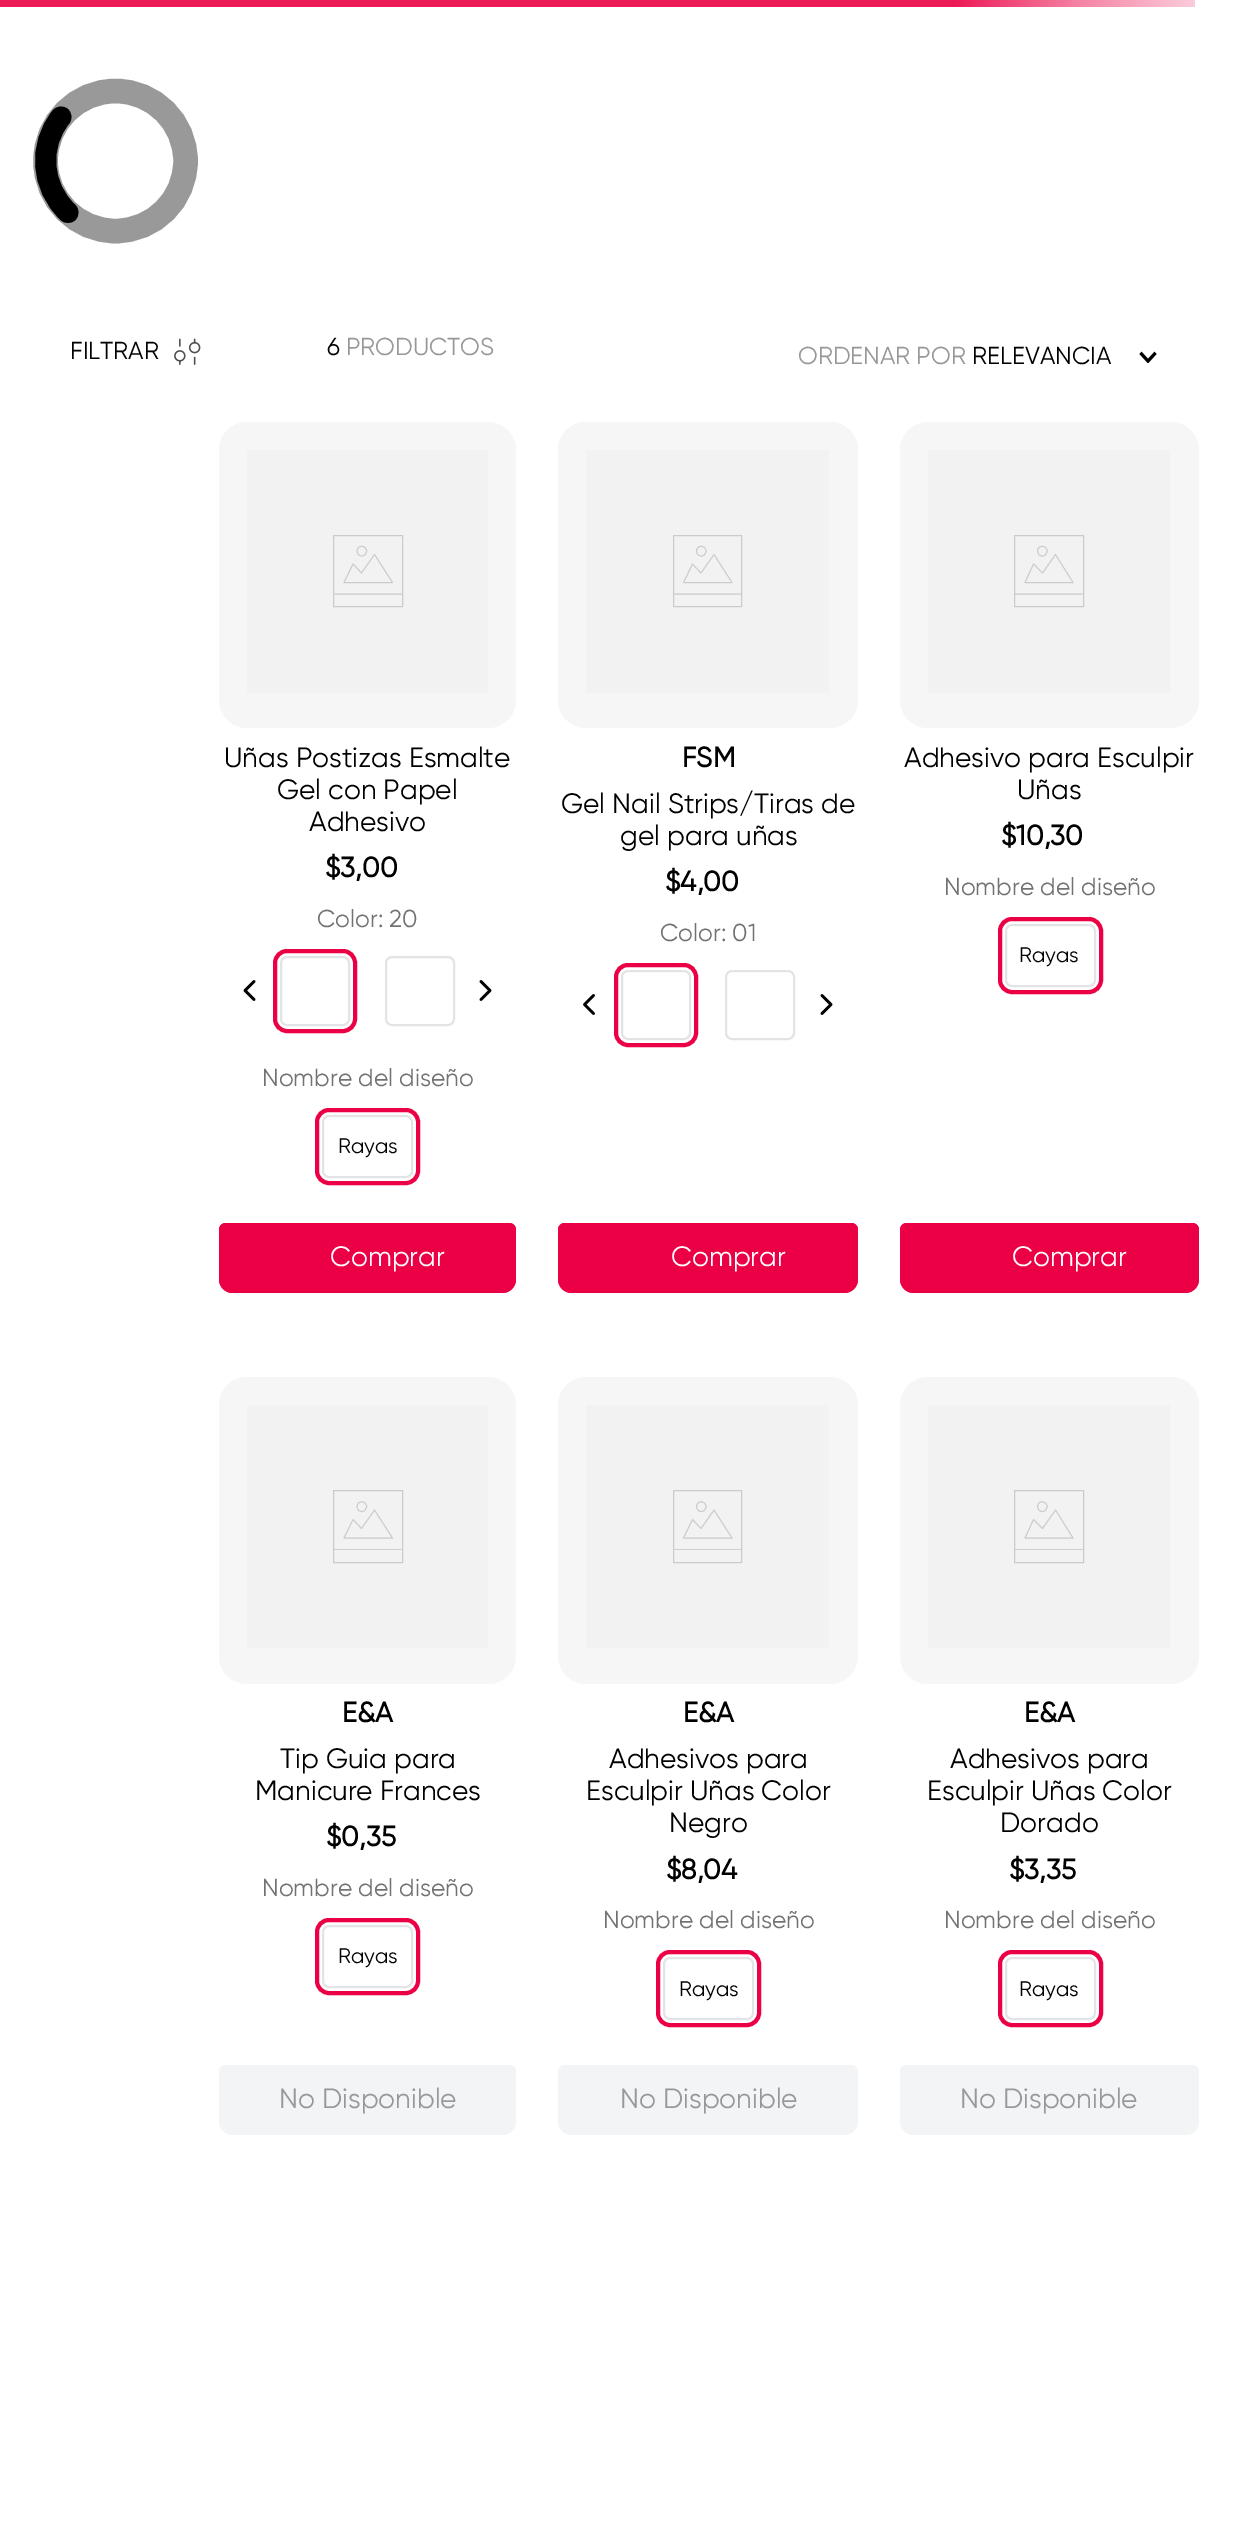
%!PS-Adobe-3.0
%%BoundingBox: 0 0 1257 2536
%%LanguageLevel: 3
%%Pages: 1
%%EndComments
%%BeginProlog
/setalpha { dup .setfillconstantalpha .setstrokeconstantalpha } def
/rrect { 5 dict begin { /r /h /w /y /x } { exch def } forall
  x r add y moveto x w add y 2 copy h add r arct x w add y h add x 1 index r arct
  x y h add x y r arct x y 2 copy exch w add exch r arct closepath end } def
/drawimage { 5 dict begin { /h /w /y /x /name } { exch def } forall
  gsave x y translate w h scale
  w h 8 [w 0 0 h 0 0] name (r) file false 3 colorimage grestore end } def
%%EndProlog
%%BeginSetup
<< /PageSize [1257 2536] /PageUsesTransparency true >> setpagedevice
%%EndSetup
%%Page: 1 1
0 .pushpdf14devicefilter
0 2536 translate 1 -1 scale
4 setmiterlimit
1 setgray
0 0 1257 2536 rectfill
gsave newpath 0 0 moveto 1195 0 lineto 1195 7 lineto 0 7 lineto closepath clip newpath
<< /ShadingType 2 /ColorSpace /DeviceRGB /Coords [0 3.5 1195 3.5] /Extend [true true] /Function << /FunctionType 3 /Domain [0 1] /Functions [<< /FunctionType 2 /Domain [0 1] /C0 [0.929 0.102 0.345] /C1 [0.929 0.102 0.345] /N 1 >> << /FunctionType 2 /Domain [0 1] /C0 [0.929 0.102 0.345] /C1 [0.961 0.502 0.635] /N 1 >> << /FunctionType 2 /Domain [0 1] /C0 [0.961 0.502 0.635] /C1 [0.984 0.8 0.855] /N 1 >>] /Bounds [0.8 0.9] /Encode [0 1 0 1 0 1] >> >> shfill grestore
0.6 setgray
24.5 setlinewidth
newpath 115.5 161 70 0 360 arc closepath stroke
0 setgray
21 setlinewidth
1 setlinecap
newpath 68 212.5 moveto 41 187 38 145.5 61 117 curveto stroke
(images/1.raw) 174 338 27 27 drawimage
(images/2.raw) 1139 351 18 12 drawimage
0.965 setgray
219 422 297 306 28 rrect fill
0.949 setgray
247 450 241 243 rectfill
0.792 0.796 0.8 setrgbcolor
1 setlinewidth
0 setlinecap
333.5 535.5 69 71 rectstroke
0.9 setlinewidth
1 setlinecap
1 setlinejoin
newpath 344 582.5 moveto 353 564 lineto 361.5 573 lineto 374.5 554.5 lineto 392.5 582.5 lineto closepath stroke
0 setlinecap
0 setlinejoin
newpath 366.5 551 moveto 366.5 558 357 558 357 551 curveto 357 544.5 366.5 544.5 366.5 551 curveto closepath stroke
newpath 334 594 moveto 402.5 594 lineto stroke
0 setgray
2.6 setlinewidth
1 setlinecap
1 setlinejoin
newpath 254 981.5 moveto 245 990.5 lineto 254 999.5 lineto stroke
0.922 0 0.271 setrgbcolor
4 setlinewidth
0 setlinecap
0 setlinejoin
275 951 80 80 12 rrect stroke
0.89 0.894 0.902 setrgbcolor
2 setlinewidth
281 957 68 68 6 rrect stroke
386 957 68 68 6 rrect stroke
0 setgray
2.6 setlinewidth
1 setlinecap
1 setlinejoin
newpath 481 999.5 moveto 490 990.5 lineto 481 981.5 lineto stroke
0.922 0 0.271 setrgbcolor
4 setlinewidth
0 setlinecap
0 setlinejoin
317 1110 101 73 12 rrect stroke
0.89 0.894 0.902 setrgbcolor
2 setlinewidth
323 1116 89 61 6 rrect stroke
0.922 0 0.271 setrgbcolor
newpath 226 1223 moveto 509 1223 lineto 513 1223 516 1226 516 1230 curveto 516 1279 lineto 516 1286.5 509.5 1293 502 1293 curveto 233 1293 lineto 225.5 1293 219 1286.5 219 1279 curveto 219 1230 lineto 219 1226 222 1223 226 1223 curveto closepath fill
newpath 226 1223 moveto 222 1223 219 1226 219 1230 curveto 219 1279 lineto 219 1287 225 1293 233 1293 curveto 502 1293 lineto 510 1293 516 1287 516 1279 curveto 516 1230 lineto 516 1226 513 1223 509 1223 curveto closepath 226 1227 moveto 224 1227 223 1228 223 1230 curveto 223 1286 lineto 223 1288 224 1289 226 1289 curveto 509 1289 lineto 511 1289 512 1288 512 1286 curveto 512 1230 lineto 512 1228 511 1227 509 1227 curveto closepath eofill
0.965 setgray
558 422 300 306 28 rrect fill
0.949 setgray
586 450 243 243 rectfill
0.792 0.796 0.8 setrgbcolor
1 setlinewidth
673.5 535.5 68 71 rectstroke
0.9 setlinewidth
1 setlinecap
1 setlinejoin
newpath 683.5 582.5 moveto 692.5 564 lineto 701 573 lineto 714 554.5 lineto 732 582.5 lineto closepath stroke
0 setlinecap
0 setlinejoin
newpath 706 551 moveto 706 558 696.5 558 696.5 551 curveto 696.5 544.5 706 544.5 706 551 curveto closepath stroke
newpath 673.5 594 moveto 742 594 lineto stroke
0 setgray
2.6 setlinewidth
1 setlinecap
1 setlinejoin
newpath 593.5 995.5 moveto 584.5 1004.5 lineto 593.5 1013.5 lineto stroke
0.922 0 0.271 setrgbcolor
4 setlinewidth
0 setlinecap
0 setlinejoin
616 965 80 80 12 rrect stroke
0.89 0.894 0.902 setrgbcolor
2 setlinewidth
622 971 68 68 6 rrect stroke
726 971 68 68 6 rrect stroke
0 setgray
2.6 setlinewidth
1 setlinecap
1 setlinejoin
newpath 822 1013.5 moveto 831 1004.5 lineto 822 995.5 lineto stroke
0.922 0 0.271 setrgbcolor
newpath 565 1223 moveto 851 1223 lineto 855 1223 858 1226 858 1230 curveto 858 1279 lineto 858 1286.5 851.5 1293 844 1293 curveto 572 1293 lineto 564.5 1293 558 1286.5 558 1279 curveto 558 1230 lineto 558 1226 561 1223 565 1223 curveto closepath fill
newpath 565 1223 moveto 561 1223 558 1226 558 1230 curveto 558 1279 lineto 558 1287 564 1293 572 1293 curveto 844 1293 lineto 852 1293 858 1287 858 1279 curveto 858 1230 lineto 858 1226 855 1223 851 1223 curveto closepath 565 1227 moveto 563 1227 562 1228 562 1230 curveto 562 1286 lineto 562 1288 563 1289 565 1289 curveto 851 1289 lineto 853 1289 854 1288 854 1286 curveto 854 1230 lineto 854 1228 853 1227 851 1227 curveto closepath eofill
0.965 setgray
900 422 299 306 28 rrect fill
0.949 setgray
928 450 242 243 rectfill
0.792 0.796 0.8 setrgbcolor
1 setlinewidth
0 setlinecap
0 setlinejoin
1014.5 535.5 69 71 rectstroke
0.9 setlinewidth
1 setlinecap
1 setlinejoin
newpath 1025 582.5 moveto 1033.5 564 lineto 1042.5 573 lineto 1055.5 554.5 lineto 1073 582.5 lineto closepath stroke
0 setlinecap
0 setlinejoin
newpath 1047 551 moveto 1047 558 1037.5 558 1037.5 551 curveto 1037.5 544.5 1047 544.5 1047 551 curveto closepath stroke
newpath 1014.5 594 moveto 1083 594 lineto stroke
0.922 0 0.271 setrgbcolor
4 setlinewidth
1000 919 101 73 12 rrect stroke
0.89 0.894 0.902 setrgbcolor
2 setlinewidth
1006 925 89 61 6 rrect stroke
0.922 0 0.271 setrgbcolor
newpath 907 1223 moveto 1192 1223 lineto 1196 1223 1199 1226 1199 1230 curveto 1199 1279 lineto 1199 1286.5 1192.5 1293 1185 1293 curveto 914 1293 lineto 906.5 1293 900 1286.5 900 1279 curveto 900 1230 lineto 900 1226 903 1223 907 1223 curveto closepath fill
newpath 907 1223 moveto 903 1223 900 1226 900 1230 curveto 900 1279 lineto 900 1287 906 1293 914 1293 curveto 1185 1293 lineto 1193 1293 1199 1287 1199 1279 curveto 1199 1230 lineto 1199 1226 1196 1223 1192 1223 curveto closepath 907 1227 moveto 905 1227 904 1228 904 1230 curveto 904 1286 lineto 904 1288 905 1289 907 1289 curveto 1192 1289 lineto 1194 1289 1195 1288 1195 1286 curveto 1195 1230 lineto 1195 1228 1194 1227 1192 1227 curveto closepath eofill
0.965 setgray
219 1377 297 307 28 rrect fill
0.949 setgray
247 1405 241 243 rectfill
0.792 0.796 0.8 setrgbcolor
1 setlinewidth
333.5 1490.5 69 72 rectstroke
0.9 setlinewidth
1 setlinecap
1 setlinejoin
newpath 344 1538 moveto 353 1519.5 lineto 361.5 1528.5 lineto 374.5 1510 lineto 392.5 1538 lineto closepath stroke
0 setlinecap
0 setlinejoin
newpath 366.5 1506.5 moveto 366.5 1513.5 357 1513.5 357 1506.5 curveto 357 1500 366.5 1500 366.5 1506.5 curveto closepath stroke
0.9 setalpha
334 1549 69 1 rectfill
1 setalpha
0.922 0 0.271 setrgbcolor
4 setlinewidth
317 1920 101 73 12 rrect stroke
0.89 0.894 0.902 setrgbcolor
2 setlinewidth
323 1926 89 61 6 rrect stroke
0.949 0.957 0.961 setrgbcolor
newpath 226 2065 moveto 509 2065 lineto 513 2065 516 2068 516 2072 curveto 516 2121 lineto 516 2128.5 509.5 2135 502 2135 curveto 233 2135 lineto 225.5 2135 219 2128.5 219 2121 curveto 219 2072 lineto 219 2068 222 2065 226 2065 curveto closepath fill
newpath 226 2065 moveto 222 2065 219 2068 219 2072 curveto 219 2121 lineto 219 2129 225 2135 233 2135 curveto 502 2135 lineto 510 2135 516 2129 516 2121 curveto 516 2072 lineto 516 2068 513 2065 509 2065 curveto closepath 226 2069 moveto 224 2069 223 2070 223 2072 curveto 223 2128 lineto 223 2130 224 2131 226 2131 curveto 509 2131 lineto 511 2131 512 2130 512 2128 curveto 512 2072 lineto 512 2070 511 2069 509 2069 curveto closepath eofill
0.965 setgray
558 1377 300 307 28 rrect fill
0.949 setgray
586 1405 243 243 rectfill
0.792 0.796 0.8 setrgbcolor
1 setlinewidth
673.5 1490.5 68 72 rectstroke
0.9 setlinewidth
1 setlinecap
1 setlinejoin
newpath 683.5 1538 moveto 692.5 1519.5 lineto 701 1528.5 lineto 714 1510 lineto 732 1538 lineto closepath stroke
0 setlinecap
0 setlinejoin
newpath 706 1506.5 moveto 706 1513.5 696.5 1513.5 696.5 1506.5 curveto 696.5 1500 706 1500 706 1506.5 curveto closepath stroke
0.9 setalpha
674 1549 68 1 rectfill
1 setalpha
0.922 0 0.271 setrgbcolor
4 setlinewidth
658 1952 101 73 12 rrect stroke
0.89 0.894 0.902 setrgbcolor
2 setlinewidth
664 1958 89 61 6 rrect stroke
0.949 0.957 0.961 setrgbcolor
newpath 565 2065 moveto 851 2065 lineto 855 2065 858 2068 858 2072 curveto 858 2121 lineto 858 2128.5 851.5 2135 844 2135 curveto 572 2135 lineto 564.5 2135 558 2128.5 558 2121 curveto 558 2072 lineto 558 2068 561 2065 565 2065 curveto closepath fill
newpath 565 2065 moveto 561 2065 558 2068 558 2072 curveto 558 2121 lineto 558 2129 564 2135 572 2135 curveto 844 2135 lineto 852 2135 858 2129 858 2121 curveto 858 2072 lineto 858 2068 855 2065 851 2065 curveto closepath 565 2069 moveto 563 2069 562 2070 562 2072 curveto 562 2128 lineto 562 2130 563 2131 565 2131 curveto 851 2131 lineto 853 2131 854 2130 854 2128 curveto 854 2072 lineto 854 2070 853 2069 851 2069 curveto closepath eofill
0.965 setgray
900 1377 299 307 28 rrect fill
0.949 setgray
928 1405 242 243 rectfill
0.792 0.796 0.8 setrgbcolor
1 setlinewidth
1014.5 1490.5 69 72 rectstroke
0.9 setlinewidth
1 setlinecap
1 setlinejoin
newpath 1025 1538 moveto 1033.5 1519.5 lineto 1042.5 1528.5 lineto 1055.5 1510 lineto 1073 1538 lineto closepath stroke
0 setlinecap
0 setlinejoin
newpath 1047 1506.5 moveto 1047 1513.5 1037.5 1513.5 1037.5 1506.5 curveto 1037.5 1500 1047 1500 1047 1506.5 curveto closepath stroke
0.808 0.812 0.816 setrgbcolor
1015 1549 68 1 rectfill
0.922 0 0.271 setrgbcolor
4 setlinewidth
1000 1952 101 73 12 rrect stroke
0.89 0.894 0.902 setrgbcolor
2 setlinewidth
1006 1958 89 61 6 rrect stroke
0.949 0.957 0.961 setrgbcolor
newpath 907 2065 moveto 1192 2065 lineto 1196 2065 1199 2068 1199 2072 curveto 1199 2121 lineto 1199 2128.5 1192.5 2135 1185 2135 curveto 914 2135 lineto 906.5 2135 900 2128.5 900 2121 curveto 900 2072 lineto 900 2068 903 2065 907 2065 curveto closepath fill
newpath 907 2065 moveto 903 2065 900 2068 900 2072 curveto 900 2121 lineto 900 2129 906 2135 914 2135 curveto 1185 2135 lineto 1193 2135 1199 2129 1199 2121 curveto 1199 2072 lineto 1199 2068 1196 2065 1192 2065 curveto closepath 907 2069 moveto 905 2069 904 2070 904 2072 curveto 904 2128 lineto 904 2130 905 2131 907 2131 curveto 1192 2131 lineto 1194 2131 1195 2130 1195 2128 curveto 1195 2072 lineto 1195 2070 1194 2069 1192 2069 curveto closepath eofill
/Gilroy-Regular [24.5 0 0 -24.5 0 0] selectfont
0 setgray
70 359 moveto (FILTRAR) show
327 355 moveto (6) show
0.592 0.596 0.6 setrgbcolor
346 355 moveto (PRODUCTOS) show
798 364 moveto (ORDENAR POR) show
0 setgray
972 364 moveto (RELEVANCIA) show
/Gilroy-Regular [28 0 0 -28 0 0] selectfont
224 767 moveto (Uñas Postizas Esmalte) show
277 799 moveto (Gel con Papel) show
309 831 moveto (Adhesivo) show
/Gilroy-Bold [28 0 0 -28 0 0] selectfont
325 877 moveto ($3,00) show
/Gilroy-Regular [24.5 0 0 -24.5 0 0] selectfont
0.447 0.447 0.451 setrgbcolor
317 927 moveto (Color: 20) show
262 1086 moveto (Nombre del diseño) show
/Gilroy-Regular [21 0 0 -21 0 0] selectfont
0 setgray
338 1153 moveto (Rayas) show
/Gilroy-Regular [28 0 0 -28 0 0] selectfont
1 setgray
330 1266 moveto (Comprar) show
/Gilroy-Bold [28 0 0 -28 0 0] selectfont
0 setgray
682 767 moveto (FSM) show
/Gilroy-Regular [28 0 0 -28 0 0] selectfont
561 813 moveto (Gel Nail Strips/Tiras de) show
620 845 moveto (gel para uñas) show
/Gilroy-Bold [28 0 0 -28 0 0] selectfont
665 891 moveto ($4,00) show
/Gilroy-Regular [24.5 0 0 -24.5 0 0] selectfont
0.447 0.447 0.451 setrgbcolor
660 941 moveto (Color: 01) show
/Gilroy-Regular [28 0 0 -28 0 0] selectfont
1 setgray
671 1266 moveto (Comprar) show
0 setgray
904 767 moveto (Adhesivo para Esculpir) show
1017 799 moveto (Uñas) show
/Gilroy-Bold [28 0 0 -28 0 0] selectfont
1001 845 moveto ($10,30) show
/Gilroy-Regular [24.5 0 0 -24.5 0 0] selectfont
0.447 0.447 0.451 setrgbcolor
944 895 moveto (Nombre del diseño) show
/Gilroy-Regular [21 0 0 -21 0 0] selectfont
0 setgray
1019 962 moveto (Rayas) show
/Gilroy-Regular [28 0 0 -28 0 0] selectfont
1 setgray
1012 1266 moveto (Comprar) show
/Gilroy-Bold [28 0 0 -28 0 0] selectfont
0 setgray
342 1722 moveto (E&A) show
/Gilroy-Regular [28 0 0 -28 0 0] selectfont
280 1768 moveto (Tip Guia para) show
255 1800 moveto (Manicure Frances) show
/Gilroy-Bold [28 0 0 -28 0 0] selectfont
326 1846 moveto ($0,35) show
/Gilroy-Regular [24.5 0 0 -24.5 0 0] selectfont
0.447 0.447 0.451 setrgbcolor
262 1896 moveto (Nombre del diseño) show
/Gilroy-Regular [21 0 0 -21 0 0] selectfont
0 setgray
338 1963 moveto (Rayas) show
/Gilroy-Regular [28 0 0 -28 0 0] selectfont
0.592 0.596 0.6 setrgbcolor
279 2108 moveto (No Disponible) show
/Gilroy-Bold [28 0 0 -28 0 0] selectfont
0 setgray
683 1722 moveto (E&A) show
/Gilroy-Regular [28 0 0 -28 0 0] selectfont
609 1768 moveto (Adhesivos para) show
586 1800 moveto (Esculpir Uñas Color) show
669 1832 moveto (Negro) show
/Gilroy-Bold [28 0 0 -28 0 0] selectfont
666 1879 moveto ($8,04) show
/Gilroy-Regular [24.5 0 0 -24.5 0 0] selectfont
0.447 0.447 0.451 setrgbcolor
603 1928 moveto (Nombre del diseño) show
/Gilroy-Regular [21 0 0 -21 0 0] selectfont
0 setgray
679 1996 moveto (Rayas) show
/Gilroy-Regular [28 0 0 -28 0 0] selectfont
0.592 0.596 0.6 setrgbcolor
620 2108 moveto (No Disponible) show
/Gilroy-Bold [28 0 0 -28 0 0] selectfont
0 setgray
1024 1722 moveto (E&A) show
/Gilroy-Regular [28 0 0 -28 0 0] selectfont
950 1768 moveto (Adhesivos para) show
927 1800 moveto (Esculpir Uñas Color) show
1000 1832 moveto (Dorado) show
/Gilroy-Bold [28 0 0 -28 0 0] selectfont
1009 1879 moveto ($3,35) show
/Gilroy-Regular [24.5 0 0 -24.5 0 0] selectfont
0.447 0.447 0.451 setrgbcolor
944 1928 moveto (Nombre del diseño) show
/Gilroy-Regular [21 0 0 -21 0 0] selectfont
0 setgray
1019 1996 moveto (Rayas) show
/Gilroy-Regular [28 0 0 -28 0 0] selectfont
0.592 0.596 0.6 setrgbcolor
960 2108 moveto (No Disponible) show
.poppdf14devicefilter showpage
%%EOF
